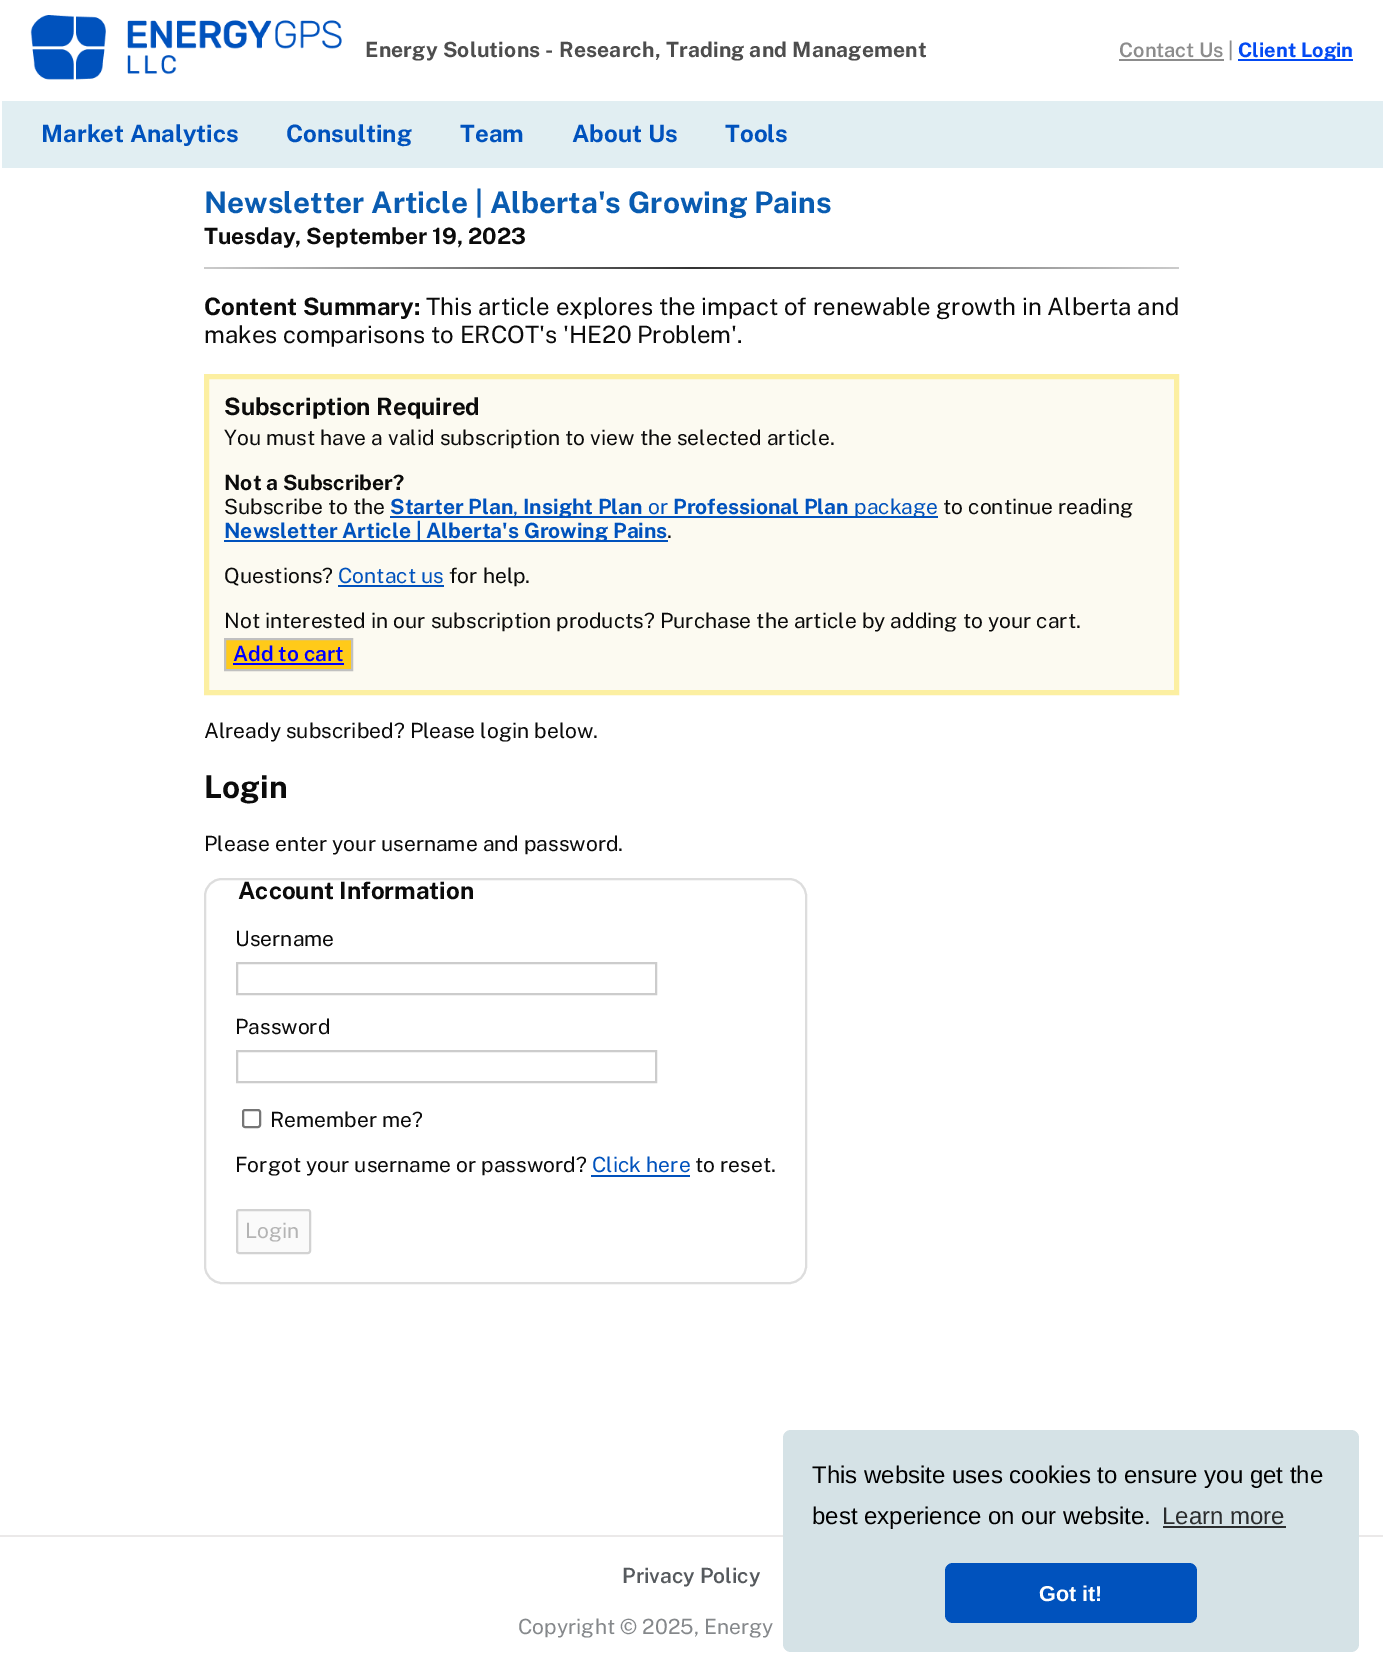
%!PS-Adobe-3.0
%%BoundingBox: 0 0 1383 1675
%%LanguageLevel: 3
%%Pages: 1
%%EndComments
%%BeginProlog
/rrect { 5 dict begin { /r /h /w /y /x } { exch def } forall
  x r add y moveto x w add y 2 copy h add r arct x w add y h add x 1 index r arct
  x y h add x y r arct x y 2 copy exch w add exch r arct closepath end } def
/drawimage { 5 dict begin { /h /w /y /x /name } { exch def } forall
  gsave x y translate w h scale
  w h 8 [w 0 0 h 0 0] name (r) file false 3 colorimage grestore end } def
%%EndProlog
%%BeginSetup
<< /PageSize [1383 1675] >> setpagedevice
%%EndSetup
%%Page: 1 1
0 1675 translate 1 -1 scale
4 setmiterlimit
1 setgray
0 0 1383 1675 rectfill
(images/1.raw) 30 15 312 65 drawimage
0.549 setgray
1119 59 105 2 rectfill
0.012 0.29 0.953 setrgbcolor
1238 59 115 2 rectfill
0.882 0.933 0.949 setrgbcolor
2 101 1381 67 rectfill
gsave newpath 204 267 moveto 1179 267 lineto 1179 269 lineto 204 269 lineto closepath clip newpath
<< /ShadingType 2 /ColorSpace /DeviceRGB /Coords [204 268 1179 268] /Extend [true true] /Function << /FunctionType 3 /Domain [0 1] /Functions [<< /FunctionType 2 /Domain [0 1] /C0 [0.8 0.8 0.8] /C1 [0.2 0.2 0.2] /N 1 >> << /FunctionType 2 /Domain [0 1] /C0 [0.2 0.2 0.2] /C1 [0.8 0.8 0.8] /N 1 >>] /Bounds [0.5] /Encode [0 1 0 1] >> >> shfill grestore
0.988 0.98 0.945 setrgbcolor
newpath 206.5 376.5 moveto 1176.5 376.5 lineto 1176.5 692.5 lineto 206.5 692.5 lineto closepath gsave fill grestore
0.988 0.937 0.631 setrgbcolor
5 setlinewidth
stroke
0 0.322 0.741 setrgbcolor
390 516 548 2 rectfill
224 540 444 2 rectfill
338 585 106 2 rectfill
1 0.792 0.098 setrgbcolor
newpath 225 639 moveto 352 639 lineto 352 670 lineto 225 670 lineto closepath gsave fill grestore
0.753 setgray
2 setlinewidth
stroke
0 0 1 setrgbcolor
233 663 111 2 rectfill
0.867 setgray
205 879 601 404 17 rrect stroke
0.8 setgray
237 963 419 31 rectstroke
237 1051 419 31 rectstroke
0.463 setgray
243 1110 17 17 2 rrect stroke
0 0.322 0.741 setrgbcolor
591 1175 99 2 rectfill
0.98 setgray
237 1210 73 43 2 rrect gsave fill grestore
0.824 setgray
stroke
0.922 0.914 0.914 setrgbcolor
0 1535 1383 2 rectfill
0.835 0.886 0.902 setrgbcolor
783 1430 576 222 8 rrect fill
0.169 0.176 0.18 setrgbcolor
1163 1526 123 2 rectfill
0 0.322 0.741 setrgbcolor
945 1563 252 60 8 rrect fill
/PublicSans-Bold [21 0 0 -21 0 0] selectfont
0.302 setgray
365 57 moveto 0.2 0 (Energy Solutions - Research, Trading and Management) ashow
/PublicSans-SemiBold [20 0 0 -20 0 0] selectfont
0.549 setgray
1119 57 moveto (Contact Us |) show
/PublicSans-Bold [20 0 0 -20 0 0] selectfont
0.012 0.29 0.953 setrgbcolor
1238 57 moveto (Client Login) show
/PublicSans-Bold [24 0 0 -24 0 0] selectfont
0 0.322 0.741 setrgbcolor
41 142 moveto (Market Analytics) show
286 142 moveto (Consulting) show
460 142 moveto (Team) show
572 142 moveto (About Us) show
725 142 moveto (Tools) show
/PublicSans-Bold [29.7 0 0 -29.7 0 0] selectfont
0.035 0.361 0.694 setrgbcolor
204 213 moveto (Newsletter Article | Alberta's Growing Pains) show
/PublicSans-Bold [22.5 0 0 -22.5 0 0] selectfont
0.043 setgray
204 244 moveto (Tuesday, September 19, 2023) show
/PublicSans-Bold [24 0 0 -24 0 0] selectfont
204 315 moveto (Content Summary:) show
/PublicSans-Regular [24 0 0 -24 0 0] selectfont
426 315 moveto (This article explores the impact of renewable growth in Alberta and) show
204 343 moveto (makes comparisons to ERCOT's 'HE20 Problem'.) show
/PublicSans-Bold [24 0 0 -24 0 0] selectfont
224 415 moveto (Subscription Required) show
/PublicSans-Regular [21 0 0 -21 0 0] selectfont
224 445 moveto (You must have a valid subscription to view the selected article.) show
/PublicSans-Bold [21 0 0 -21 0 0] selectfont
224 490 moveto (Not a Subscriber?) show
/PublicSans-Regular [21 0 0 -21 0 0] selectfont
224 514 moveto (Subscribe to the) show
/PublicSans-Bold [21 0 0 -21 0 0] selectfont
0 0.322 0.741 setrgbcolor
390 514 moveto (Starter Plan) show
/PublicSans-Regular [21 0 0 -21 0 0] selectfont
513 514 moveto (,) show
/PublicSans-Bold [21 0 0 -21 0 0] selectfont
523 514 moveto (Insight Plan) show
/PublicSans-Regular [21 0 0 -21 0 0] selectfont
648 514 moveto (or) show
/PublicSans-Bold [21 0 0 -21 0 0] selectfont
673 514 moveto (Professional Plan) show
/PublicSans-Regular [21 0 0 -21 0 0] selectfont
854 514 moveto (package) show
0.043 setgray
943 514 moveto (to continue reading) show
/PublicSans-Bold [21 0 0 -21 0 0] selectfont
0 0.322 0.741 setrgbcolor
224 538 moveto (Newsletter Article | Alberta's Growing Pains) show
/PublicSans-Regular [21 0 0 -21 0 0] selectfont
0.043 setgray
667 538 moveto (.) show
224 583 moveto (Questions?) show
0 0.322 0.741 setrgbcolor
338 583 moveto (Contact us) show
0.043 setgray
449 583 moveto (for help.) show
224 628 moveto (Not interested in our subscription products? Purchase the article by adding to your cart.) show
/PublicSans-SemiBold [21 0 0 -21 0 0] selectfont
0 0 1 setrgbcolor
233 661 moveto (Add to cart) show
/PublicSans-Regular [21 0 0 -21 0 0] selectfont
0.043 setgray
204 738 moveto (Already subscribed? Please login below.) show
/PublicSans-Bold [31.5 0 0 -31.5 0 0] selectfont
204 798 moveto (Login) show
/PublicSans-Regular [21 0 0 -21 0 0] selectfont
204 851 moveto (Please enter your username and password.) show
/PublicSans-Bold [24 0 0 -24 0 0] selectfont
238 899 moveto (Account Information) show
/PublicSans-Regular [21 0 0 -21 0 0] selectfont
235 946 moveto (Username) show
235 1034 moveto (Password) show
270 1127 moveto (Remember me?) show
235 1172 moveto (Forgot your username or password?) show
0 0.322 0.741 setrgbcolor
592 1172 moveto (Click here) show
0.043 setgray
695 1172 moveto (to reset.) show
0.706 setgray
245 1238 moveto (Login) show
/PublicSans-SemiBold [21 0 0 -21 0 0] selectfont
0.337 0.353 0.369 setrgbcolor
622 1583 moveto (Privacy Policy) show
/PublicSans-Regular [21 0 0 -21 0 0] selectfont
0.522 0.533 0.545 setrgbcolor
518 1634 moveto (Copyright © 2025, Energy) show
/LiberationSans-Regular [24 0 0 -24 0 0] selectfont
0 setgray
812 1483 moveto (This website uses cookies to ensure you get the) show
812 1524 moveto (best experience on our website.) show
0.169 0.176 0.18 setrgbcolor
1162 1524 moveto (Learn more) show
/LiberationSans-Bold [21.5 0 0 -21.5 0 0] selectfont
1 setgray
1039 1601 moveto (Got it!) show
showpage
%%EOF
